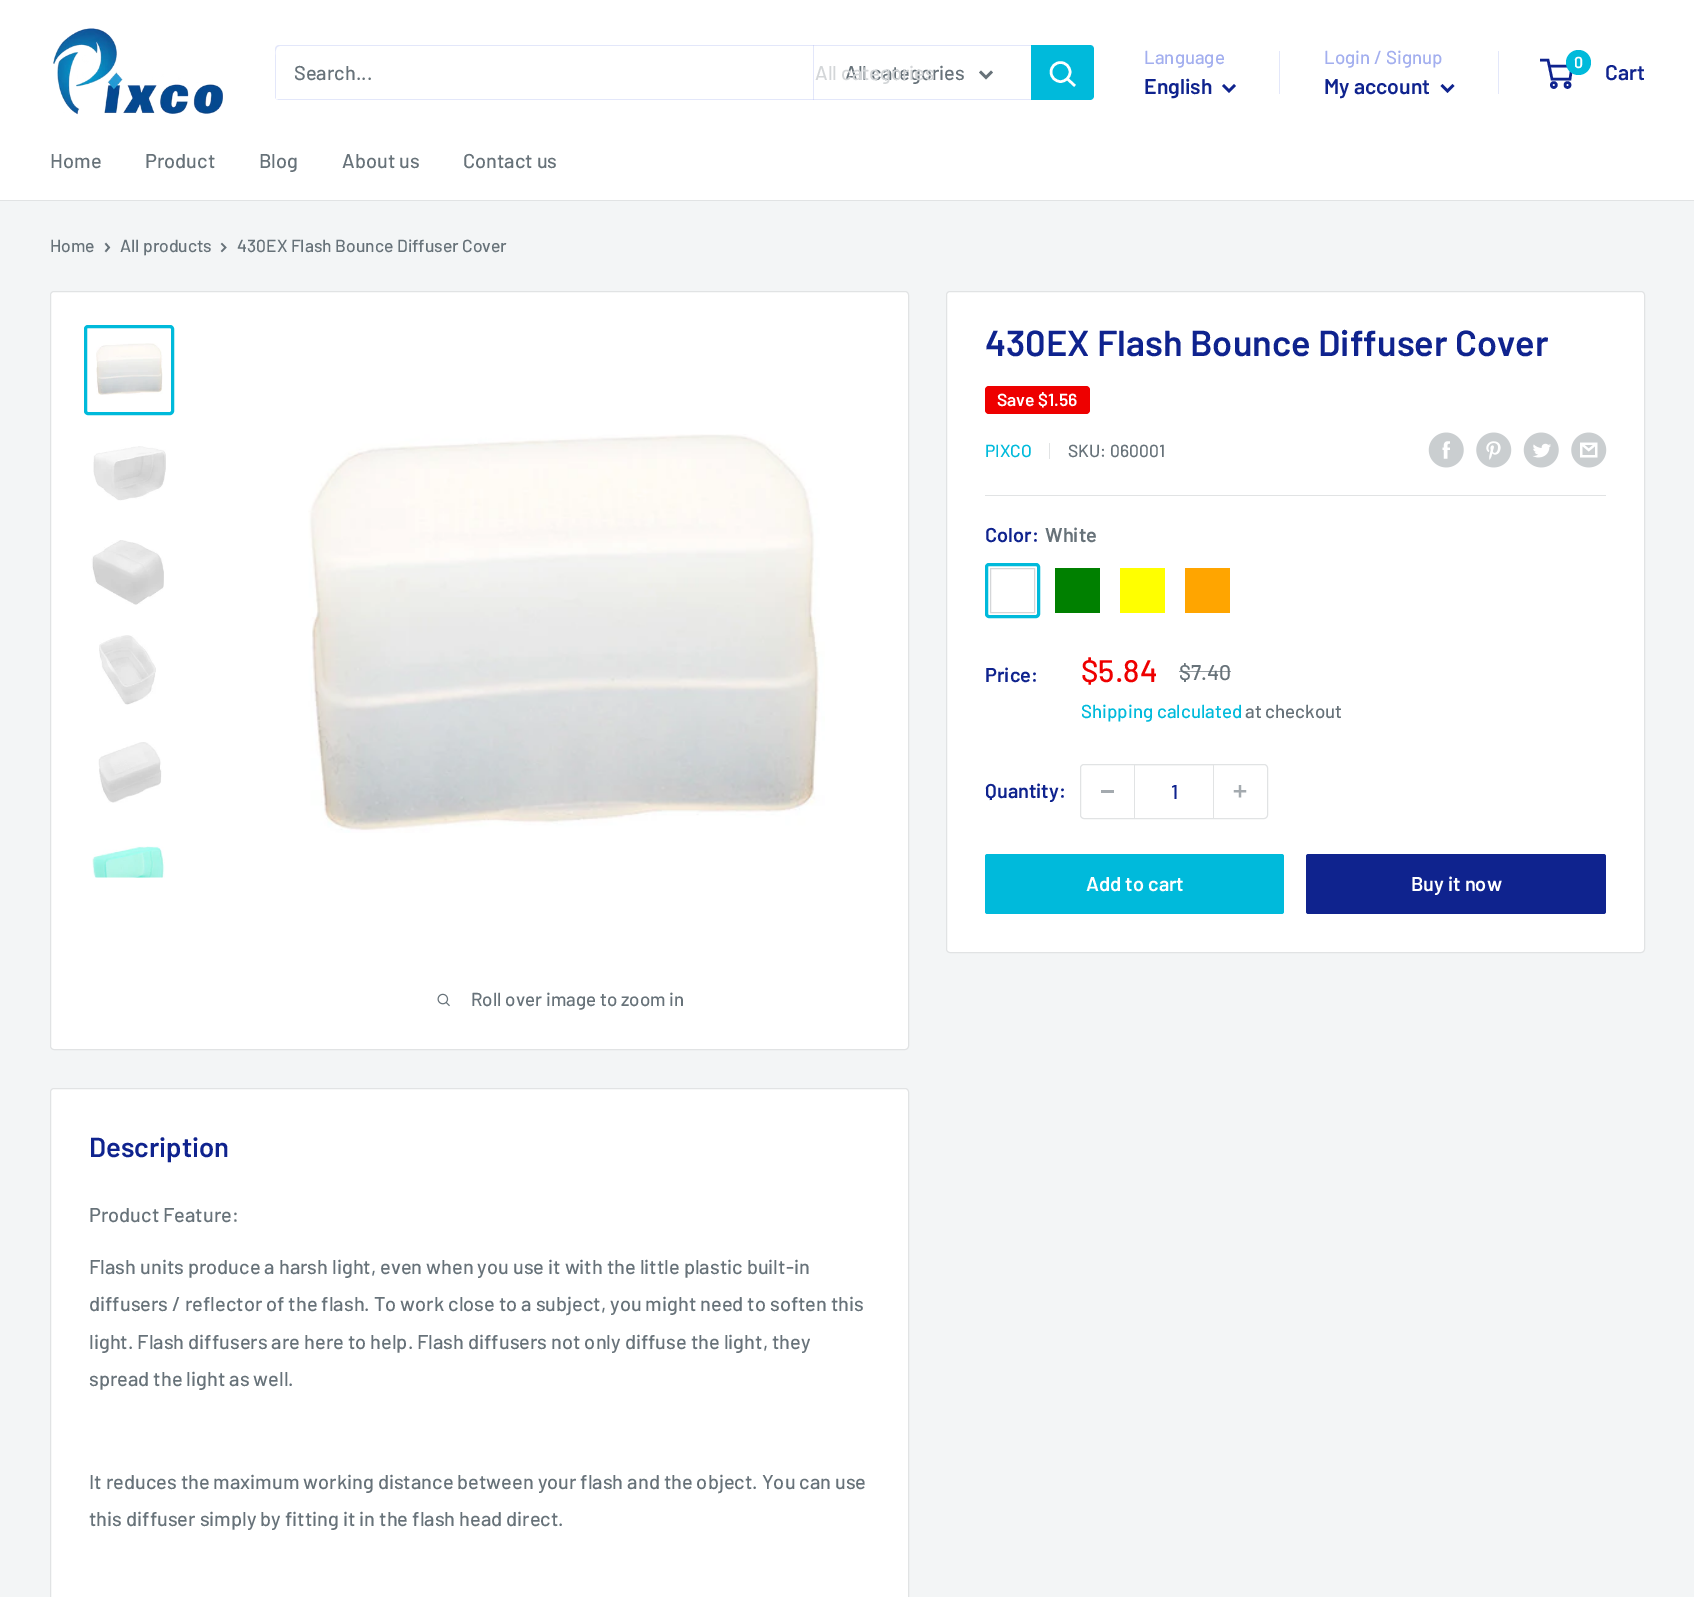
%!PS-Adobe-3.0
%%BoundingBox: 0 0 1694 1597
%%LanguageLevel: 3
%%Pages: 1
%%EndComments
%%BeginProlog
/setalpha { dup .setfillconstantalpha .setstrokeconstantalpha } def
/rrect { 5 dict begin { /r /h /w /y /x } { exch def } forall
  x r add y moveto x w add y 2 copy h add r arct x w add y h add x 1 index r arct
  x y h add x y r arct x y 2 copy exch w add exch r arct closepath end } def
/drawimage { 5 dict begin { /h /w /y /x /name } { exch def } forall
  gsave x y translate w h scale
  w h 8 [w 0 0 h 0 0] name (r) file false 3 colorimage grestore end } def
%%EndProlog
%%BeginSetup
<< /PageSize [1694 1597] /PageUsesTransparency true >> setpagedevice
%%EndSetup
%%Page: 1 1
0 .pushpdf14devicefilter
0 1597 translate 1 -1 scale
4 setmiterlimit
0.953 0.961 0.965 setrgbcolor
0 0 1694 1597 rectfill
1 setgray
0 0 1694 200 rectfill
(images/1.raw) 53 28 170 87 drawimage
0.89 0.906 0.98 setrgbcolor
newpath 276 99 moveto 277 99 278 100 279 100 curveto 1090 100 lineto 1092 100 1094 98 1094 96 curveto 1094 49 lineto 1094 47 1093 46 1092 45 curveto 1092 48 lineto 1092 95 lineto 1092 97 1091 99 1089 99 curveto 278 99 lineto closepath fill
0.3 setalpha
0.639 0.686 0.937 setrgbcolor
newpath 280 46 moveto 1091 46 lineto 1093 47 lineto 1093 46 1091 45 1090 45 curveto 279 45 lineto 277 45 275 47 275 49 curveto 275 96 lineto 275 97 275 98 276 99 curveto 276 58 lineto 276 56 274 46 280 46 curveto closepath fill
813 45 1 55 rectfill
1 setalpha
0.404 0.447 0.475 setrgbcolor
2.5 setlinewidth
2 setlinecap
newpath 991 72.5 moveto 986 77.5 lineto 981 72.5 lineto stroke
0 0.729 0.859 setrgbcolor
newpath 1031 45 moveto 1090 45 lineto 1092 45 1094 47 1094 49 curveto 1094 96 lineto 1094 98 1092 100 1090 100 curveto 1031 100 lineto closepath fill
1 setgray
newpath 1074 85 moveto 1067.5 79 lineto stroke
0 setlinecap
newpath 1060.5 72 9.5 0 360 arc closepath stroke
0.059 0.137 0.557 setrgbcolor
2 setlinecap
newpath 1234 86 moveto 1229 91 lineto 1224 86 lineto stroke
0.89 0.906 0.98 setrgbcolor
1279 51 1 43 rectfill
1498 51 1 43 rectfill
0.059 0.137 0.557 setrgbcolor
newpath 1452.5 86 moveto 1447.5 91 lineto 1442.5 86 lineto stroke
0 setlinecap
newpath 1553.8 85 2.5 0 360 arc closepath stroke
newpath 1567.5 85 2.5 0 360 arc closepath stroke
newpath 1549 66 moveto 1572 66 lineto 1570 79 lineto 1552 79 lineto 1548 60 lineto 1540 60 lineto stroke
0 0.729 0.859 setrgbcolor
newpath 1578.5 62.5 12.5 0 360 arc closepath fill
0.882 0.89 0.894 setrgbcolor
0 200 1694 1 rectfill
0.404 0.447 0.475 setrgbcolor
1.7 setlinewidth
2 setlinecap
newpath 106 244 moveto 109 247.5 lineto 106 251 lineto stroke
newpath 222 244 moveto 225.5 247.5 lineto 222 251 lineto stroke
1 setgray
946.5 291.5 698 661 3.5 rrect gsave fill grestore
0.882 0.89 0.894 setrgbcolor
1 setlinewidth
0 setlinecap
stroke
0.933 0 0 setrgbcolor
985 386 105 28 4 rrect fill
0.882 0.89 0.894 setrgbcolor
1049 443 1 16 rectfill
(images/2.raw) 1428 432 36 36 drawimage
(images/3.raw) 1476 432 36 36 drawimage
(images/4.raw) 1523 432 36 36 drawimage
(images/5.raw) 1571 432 36 36 drawimage
985 495 621 1 rectfill
0.831 0.839 0.847 setrgbcolor
990.5 568.5 44 44 rectstroke
0 0.729 0.859 setrgbcolor
3 setlinewidth
986.5 564.5 52 52 2.5 rrect stroke
0 0.502 0 setrgbcolor
1055 568 45 45 rectfill
1 1 0 setrgbcolor
1120 568 45 45 rectfill
1 0.647 0 setrgbcolor
1185 568 45 45 rectfill
0.882 0.89 0.894 setrgbcolor
1 setlinewidth
1080.5 764.5 187 54 3.5 rrect stroke
0.643 0.667 0.686 setrgbcolor
1101 790 13 3 rectfill
0.953 0.957 0.957 setrgbcolor
1135 765 78 1 rectfill
0.882 0.89 0.894 setrgbcolor
1213 765 1 53 rectfill
1134 765 1 53 rectfill
(images/6.raw) 1233 785 14 13 drawimage
0 0.729 0.859 setrgbcolor
985 854 299 60 2.5 rrect fill
0.059 0.137 0.557 setrgbcolor
1306 854 300 60 2.5 rrect fill
1 setgray
50.5 291.5 858 758 3.5 rrect gsave fill grestore
0.882 0.89 0.894 setrgbcolor
stroke
0 0.729 0.859 setrgbcolor
3 setlinewidth
85.5 326.5 87 87 2.5 rrect stroke
(images/7.raw) 96 343 67 52 drawimage
(images/8.raw) 93 446 73 55 drawimage
(images/9.raw) 91 540 73 65 drawimage
(images/10.raw) 99 635 57 70 drawimage
(images/11.raw) 98 742 64 61 drawimage
(images/12.raw) 92 846 73 32 drawimage
(images/13.raw) 308 434 517 399 drawimage
(images/14.raw) 437 993 13 14 drawimage
1 setgray
50.5 1088.5 858 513 3.5 rrect gsave fill grestore
0.882 0.89 0.894 setrgbcolor
1 setlinewidth
stroke
/Barlow-Medium [20 0 0 -20 0 0] selectfont
0.404 0.447 0.475 setrgbcolor
294 80 moveto (Search...) show
845 80 moveto (All categories) show
0.827 0.839 0.847 setrgbcolor
815 80 moveto (All categories) show
/Barlow-Medium [18.75 0 0 -18.75 0 0] selectfont
0.639 0.686 0.937 setrgbcolor
1144 64 moveto (Language) show
/Barlow-SemiBold [21.25 0 0 -21.25 0 0] selectfont
0.059 0.137 0.557 setrgbcolor
1144 94 moveto (English) show
/Barlow-Medium [18.75 0 0 -18.75 0 0] selectfont
0.639 0.686 0.937 setrgbcolor
1324 64 moveto (Login / Signup) show
/Barlow-SemiBold [21.25 0 0 -21.25 0 0] selectfont
0.059 0.137 0.557 setrgbcolor
1324 94 moveto (My account) show
/Barlow-SemiBold [16 0 0 -16 0 0] selectfont
1 setgray
1574 68 moveto (0) show
/Barlow-SemiBold [21.25 0 0 -21.25 0 0] selectfont
0.059 0.137 0.557 setrgbcolor
1605 80 moveto (Cart) show
/Barlow-Medium [20 0 0 -20 0 0] selectfont
0.404 0.447 0.475 setrgbcolor
50 168 moveto (Home) show
145 168 moveto (Product) show
259 168 moveto (Blog) show
342 168 moveto (About us) show
463 168 moveto (Contact us) show
/Barlow-Medium [17.5 0 0 -17.5 0 0] selectfont
50 252 moveto (Home) show
120 252 moveto (All products) show
237 252 moveto (430EX Flash Bounce Diffuser Cover) show
/Barlow-SemiBold [36.25 0 0 -36.25 0 0] selectfont
0.059 0.137 0.557 setrgbcolor
985 356 moveto (430EX Flash Bounce Diffuser Cover) show
/Barlow-SemiBold [17.5 0 0 -17.5 0 0] selectfont
1 setgray
997 406 moveto (Save $1.56) show
/Barlow-Medium [17.5 0 0 -17.5 0 0] selectfont
0 0.729 0.859 setrgbcolor
985 457 moveto (PIXCO) show
0.404 0.447 0.475 setrgbcolor
1068 457 moveto (SKU: 060001) show
/Barlow-SemiBold [20 0 0 -20 0 0] selectfont
0.059 0.137 0.557 setrgbcolor
985 542 moveto (Color:) show
0.404 0.447 0.475 setrgbcolor
1045 542 moveto (White) show
0.059 0.137 0.557 setrgbcolor
985 682 moveto (Price:) show
/Barlow-Medium [31 0 0 -31 0 0] selectfont
0.933 0 0 setrgbcolor
1081 682 moveto ($5.84) show
/Barlow-Medium [21.25 0 0 -21.25 0 0] selectfont
0.404 0.447 0.475 setrgbcolor
1179 680 moveto ($7.40) show
0.7 setalpha
1179 671 52 1 rectfill
/Barlow-Medium [18.75 0 0 -18.75 0 0] selectfont
1 setalpha
0 0.729 0.859 setrgbcolor
1081 718 moveto (Shipping calculated) show
0.404 0.447 0.475 setrgbcolor
1245 718 moveto (at checkout) show
/Barlow-SemiBold [20 0 0 -20 0 0] selectfont
0.059 0.137 0.557 setrgbcolor
985 798 moveto (Quantity:) show
/Barlow-Medium [20 0 0 -20 0 0] selectfont
1171 799 moveto (1) show
/Barlow-SemiBold [20 0 0 -20 0 0] selectfont
1 setgray
1086 891 moveto (Add to cart) show
1411 891 moveto (Buy it now) show
/Barlow-Medium [18.75 0 0 -18.75 0 0] selectfont
0.404 0.447 0.475 setrgbcolor
471 1006 moveto (Roll over image to zoom in) show
/Barlow-SemiBold [27.5 0 0 -27.5 0 0] selectfont
0.059 0.137 0.557 setrgbcolor
89 1157 moveto (Description) show
/Barlow-Medium [20 0 0 -20 0 0] selectfont
0.404 0.447 0.475 setrgbcolor
89 1222 moveto (Product Feature:) show
89 1274 moveto (Flash units produce a harsh light, even when you use it with the little plastic built-in) show
89 1311 moveto (diffusers / reflector of the flash. To work close to a subject, you might need to soften this) show
89 1349 moveto (light. Flash diffusers are here to help. Flash diffusers not only diffuse the light, they) show
89 1386 moveto (spread the light as well.) show
89 1489 moveto (It reduces the maximum working distance between your flash and the object. You can use) show
89 1526 moveto (this diffuser simply by fitting it in the flash head direct.) show
.poppdf14devicefilter showpage
%%EOF
